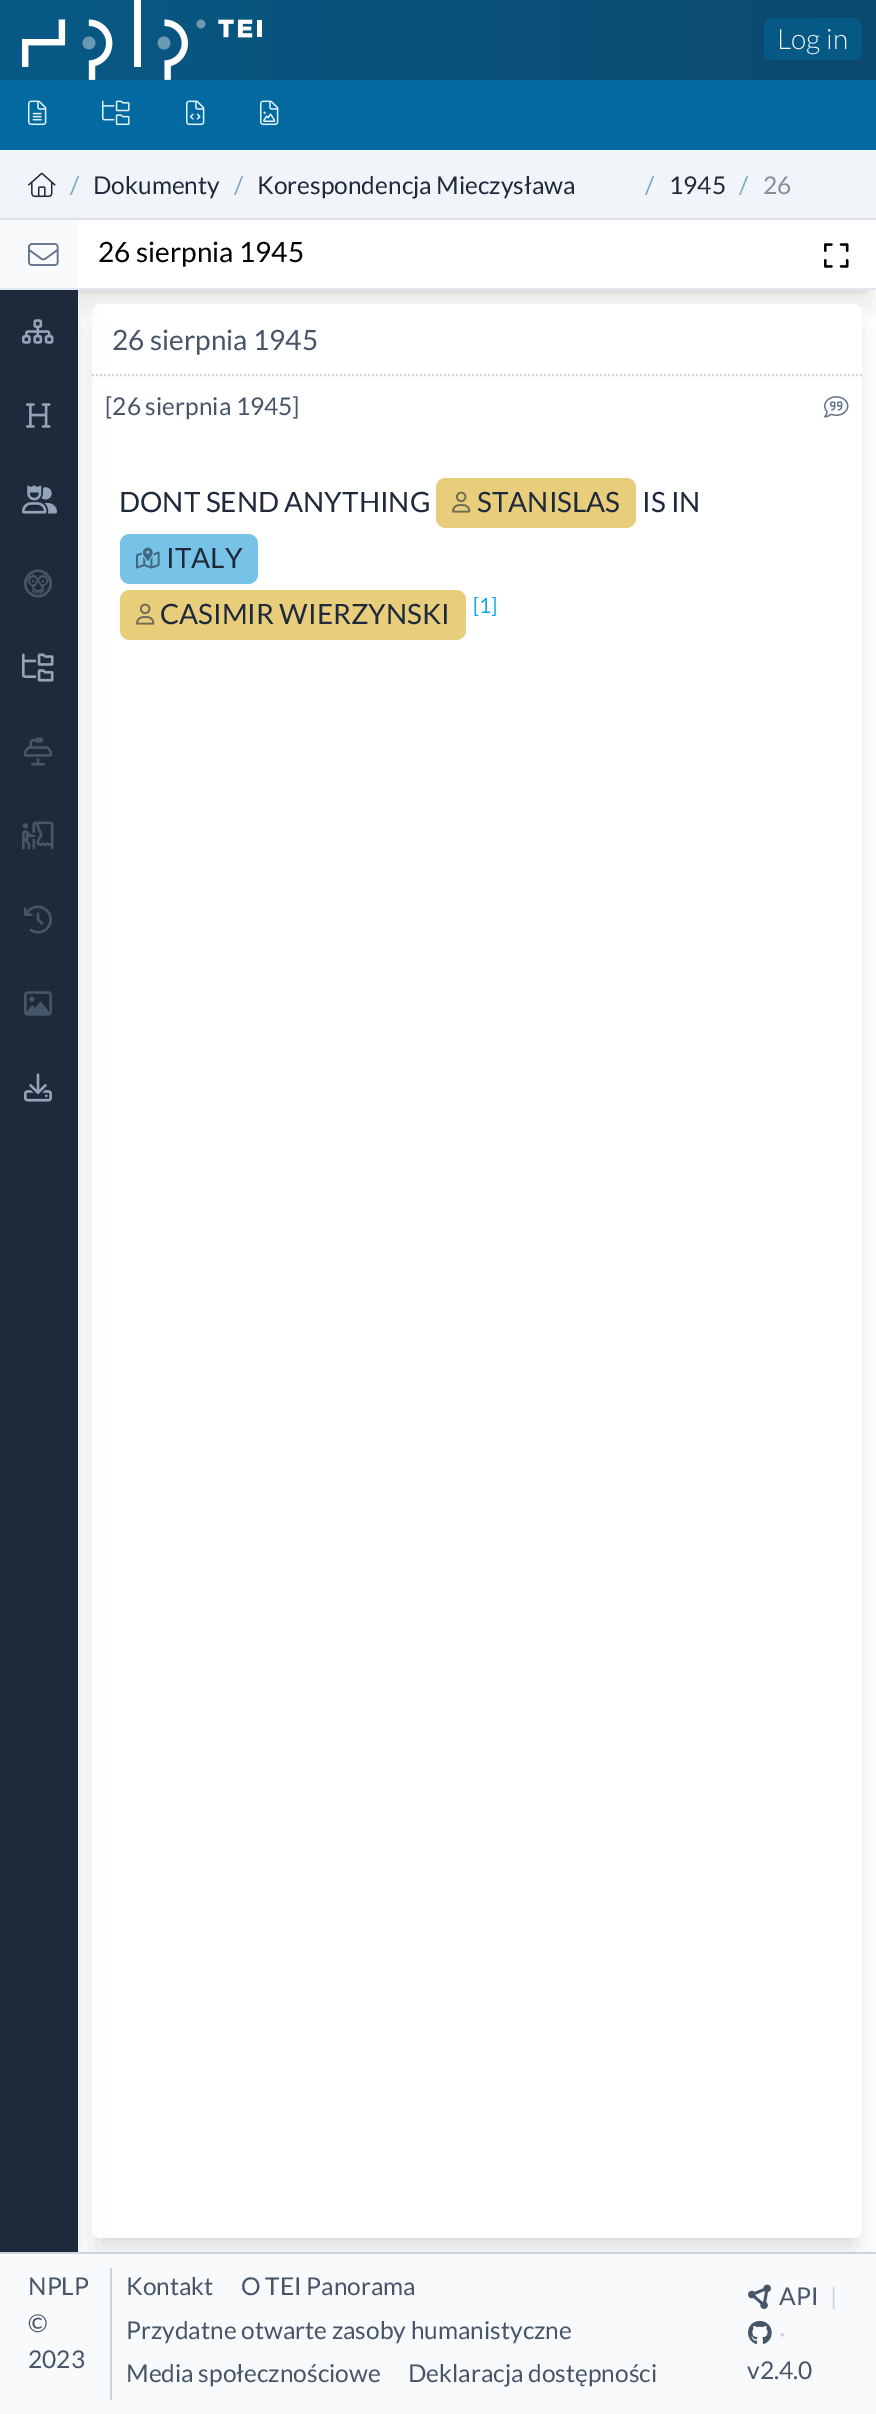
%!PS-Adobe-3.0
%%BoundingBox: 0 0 876 2414
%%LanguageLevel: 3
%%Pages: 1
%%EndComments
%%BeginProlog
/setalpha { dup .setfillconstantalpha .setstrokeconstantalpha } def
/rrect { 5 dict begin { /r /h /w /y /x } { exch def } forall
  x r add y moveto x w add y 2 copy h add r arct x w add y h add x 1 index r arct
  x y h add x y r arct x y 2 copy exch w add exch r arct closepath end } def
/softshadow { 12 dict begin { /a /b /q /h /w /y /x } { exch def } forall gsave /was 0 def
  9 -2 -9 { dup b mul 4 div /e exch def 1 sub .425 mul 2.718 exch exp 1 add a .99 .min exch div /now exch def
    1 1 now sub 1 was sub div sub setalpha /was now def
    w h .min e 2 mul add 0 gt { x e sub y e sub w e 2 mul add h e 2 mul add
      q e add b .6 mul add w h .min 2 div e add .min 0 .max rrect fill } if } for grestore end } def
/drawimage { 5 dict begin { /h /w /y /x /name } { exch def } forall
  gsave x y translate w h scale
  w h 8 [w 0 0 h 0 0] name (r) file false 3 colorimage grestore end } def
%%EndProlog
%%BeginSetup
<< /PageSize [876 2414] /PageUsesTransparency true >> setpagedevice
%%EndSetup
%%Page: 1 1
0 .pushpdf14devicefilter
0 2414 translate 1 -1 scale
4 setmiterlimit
1 setgray
0 0 876 2414 rectfill
gsave newpath 0 0 moveto 876 0 lineto 876 80 lineto 0 80 lineto closepath clip newpath
<< /ShadingType 2 /ColorSpace /DeviceRGB /Coords [0 40 876 40] /Extend [true true] /Function << /FunctionType 2 /Domain [0 1] /C0 [0.027 0.349 0.522] /C1 [0.047 0.29 0.431] /N 1 >> >> shfill grestore
(images/1.raw) 22 0 240 80 drawimage
0.027 0.349 0.522 setrgbcolor
764 18 98 42 8 rrect fill
0.012 0.412 0.631 setrgbcolor
0 80 876 70 rectfill
(images/2.raw) 28 100 19 26 drawimage
(images/3.raw) 102 100 28 26 drawimage
(images/4.raw) 186 100 19 26 drawimage
(images/5.raw) 260 100 19 26 drawimage
gsave
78 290 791 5 rectclip
0 setgray
8 236 860 54 0 6 0.1 softshadow
grestore
gsave
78 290 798 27 rectclip
0 setgray
6 246 864 58 0 15 0.1 softshadow
grestore
0.945 0.961 0.976 setrgbcolor
0 150 876 68 rectfill
0.863 0.882 0.902 setrgbcolor
0 218 876 2 rectfill
(images/6.raw) 28 172 28 26 drawimage
0.886 0.91 0.941 setrgbcolor
0 288 876 2 rectfill
0.973 0.98 0.988 setrgbcolor
0 220 78 68 rectfill
(images/7.raw) 28 243 31 23 drawimage
(images/8.raw) 824 243 25 25 drawimage
0 setgray
100 320 754 1918 0 6 0.1 softshadow
98 330 758 1922 1 15 0.1 softshadow
1 setgray
92 304 770 1934 8 rrect fill
0.796 0.835 0.882 setrgbcolor
2 setlinewidth
[2 2] 0 setdash
newpath 92 375 moveto 862 375 lineto stroke
0 setgray
6 316 66 1950 0 15 0.1 softshadow
0.118 0.161 0.231 setrgbcolor
0 290 78 1962 rectfill
(images/9.raw) 22 319 32 25 drawimage
(images/10.raw) 26 403 25 25 drawimage
(images/11.raw) 22 485 35 29 drawimage
(images/12.raw) 24 569 28 29 drawimage
(images/13.raw) 22 653 32 29 drawimage
(images/14.raw) 24 737 28 29 drawimage
(images/15.raw) 22 821 32 29 drawimage
(images/16.raw) 24 905 28 29 drawimage
(images/17.raw) 24 991 28 25 drawimage
(images/18.raw) 24 1073 28 29 drawimage
(images/19.raw) 824 396 25 22 drawimage
1 0.878 0.51 setrgbcolor
436 478 200 50 10 rrect fill
0.1 setalpha
0.118 0.161 0.231 setrgbcolor
newpath 446 478 moveto 626 478 lineto 632 478 636 482 636 488 curveto 636 518 lineto 636 524 632 528 626 528 curveto 446 528 lineto 440 528 436 524 436 518 curveto 436 488 lineto 436 482 440 478 446 478 curveto closepath fill
1 setalpha
(images/20.raw) 452 491 19 22 drawimage
0.506 0.831 0.98 setrgbcolor
120 534 138 50 10 rrect fill
0.1 setalpha
0.118 0.161 0.231 setrgbcolor
newpath 130 534 moveto 248 534 lineto 254 534 258 538 258 544 curveto 258 574 lineto 258 580 254 584 248 584 curveto 130 584 lineto 124 584 120 580 120 574 curveto 120 544 lineto 120 538 124 534 130 534 curveto closepath fill
1 setalpha
(images/21.raw) 136 547 24 22 drawimage
1 0.878 0.51 setrgbcolor
120 590 346 50 10 rrect fill
0.1 setalpha
0.118 0.161 0.231 setrgbcolor
newpath 130 590 moveto 456 590 lineto 462 590 466 594 466 600 curveto 466 630 lineto 466 636 462 640 456 640 curveto 130 640 lineto 124 640 120 636 120 630 curveto 120 600 lineto 120 594 124 590 130 590 curveto closepath fill
1 setalpha
(images/20.raw) 136 603 19 22 drawimage
0.973 0.98 0.988 setrgbcolor
0 2254 876 160 rectfill
0.796 0.835 0.882 setrgbcolor
0 2252 876 2 rectfill
110 2268 2 132 rectfill
(images/22.raw) 748 2284 23 25 drawimage
(images/23.raw) 748 2320 24 24 drawimage
/Lato-Light [28 0 0 -28 0 0] selectfont
0.945 0.961 0.976 setrgbcolor
777 49 moveto (Log in) show
/Lato-Regular [24.5 0 0 -24.5 0 0] selectfont
0.486 0.655 0.749 setrgbcolor
70 194 moveto (/) show
0.118 0.161 0.231 setrgbcolor
93 194 moveto (Dokumenty) show
0.486 0.655 0.749 setrgbcolor
234 194 moveto (/) show
0.118 0.161 0.231 setrgbcolor
257 194 moveto (Korespondencja Mieczysława) show
0.486 0.655 0.749 setrgbcolor
645 194 moveto (/) show
0.118 0.161 0.231 setrgbcolor
669 194 moveto (1945) show
0.486 0.655 0.749 setrgbcolor
739 194 moveto (/) show
0.533 0.561 0.604 setrgbcolor
763 194 moveto (26) show
/Lato-Regular [28 0 0 -28 0 0] selectfont
0 setgray
98 262 moveto (26 sierpnia 1945) show
0.278 0.333 0.412 setrgbcolor
112 350 moveto (26 sierpnia 1945) show
/Lato-Regular [24.5 0 0 -24.5 0 0] selectfont
105 415 moveto ([26 sierpnia 1945]) show
/Lato-Regular [28 0 0 -28 0 0] selectfont
0.118 0.161 0.231 setrgbcolor
119 512 moveto (DONT SEND ANYTHING) show
477 512 moveto (STANISLAS) show
642 512 moveto (IS IN) show
166 568 moveto (ITALY) show
160 624 moveto (CASIMIR WIERZYNSKI) show
/Lato-Regular [21 0 0 -21 0 0] selectfont
0.055 0.647 0.914 setrgbcolor
473 613 moveto ([1]) show
/Lato-Regular [24.5 0 0 -24.5 0 0] selectfont
0.278 0.333 0.412 setrgbcolor
28 2295 moveto (NPLP) show
28 2332 moveto (©) show
28 2368 moveto (2023) show
126 2295 moveto (Kontakt) show
241 2295 moveto (O TEI Panorama) show
126 2339 moveto (Przydatne otwarte zasoby humanistyczne) show
126 2382 moveto (Media społecznościowe) show
408 2382 moveto (Deklaracja dostępności) show
779 2305 moveto (API) show
0.796 0.835 0.882 setrgbcolor
830 2305 moveto (|) show
779 2342 moveto (·) show
0.278 0.333 0.412 setrgbcolor
747 2379 moveto (v2.4.0) show
.poppdf14devicefilter showpage
%%EOF
